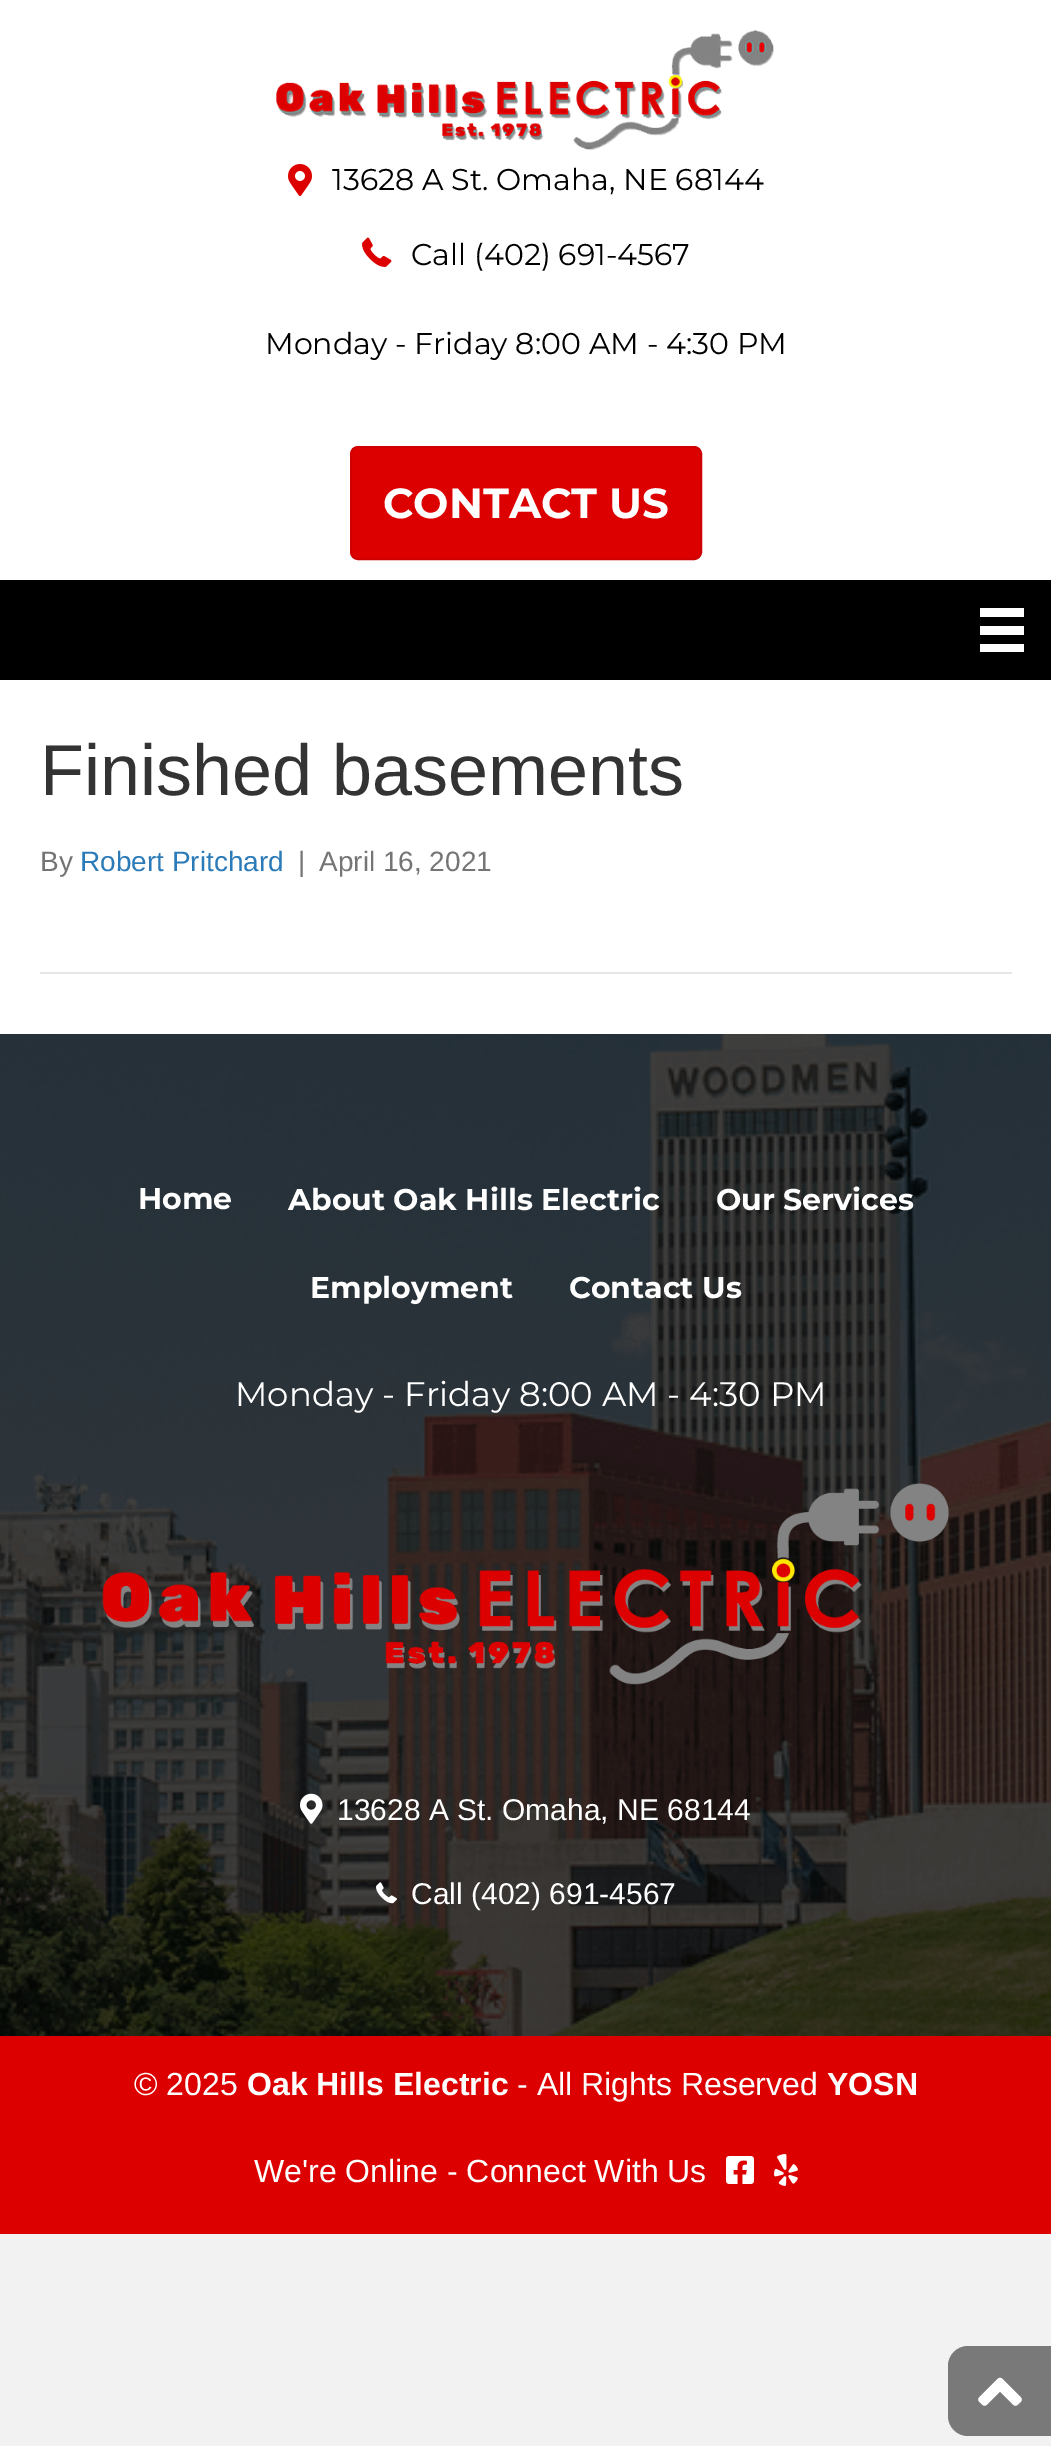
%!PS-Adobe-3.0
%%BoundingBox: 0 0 1051 2446
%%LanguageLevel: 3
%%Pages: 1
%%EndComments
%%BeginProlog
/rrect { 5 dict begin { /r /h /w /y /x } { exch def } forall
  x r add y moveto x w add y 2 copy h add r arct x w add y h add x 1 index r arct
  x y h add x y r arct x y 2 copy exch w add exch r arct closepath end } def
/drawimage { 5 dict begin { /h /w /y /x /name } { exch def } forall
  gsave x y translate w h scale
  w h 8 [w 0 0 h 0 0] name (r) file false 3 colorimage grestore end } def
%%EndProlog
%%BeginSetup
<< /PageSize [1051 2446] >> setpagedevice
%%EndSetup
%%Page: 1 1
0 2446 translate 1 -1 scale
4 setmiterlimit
0.949 setgray
0 0 1051 2446 rectfill
1 setgray
0 0 1051 580 rectfill
(images/1.raw) 276 30 498 120 drawimage
(images/2.raw) 288 164 24 32 drawimage
(images/3.raw) 362 237 30 30 drawimage
0.867 0 0 setrgbcolor
351 447 350 112 7 rrect gsave fill grestore
0.82 0 0 setrgbcolor
2 setlinewidth
stroke
0 setgray
0 580 1051 100 rectfill
1 setgray
980 608 44 9 rectfill
980 626 44 9 rectfill
980 644 44 8 rectfill
0 680 1051 354 rectfill
0.902 setgray
40 972 972 2 rectfill
(images/4.raw) 0 1034 1051 1002 drawimage
(images/5.raw) 102 1483 847 202 drawimage
(images/6.raw) 300 1793 23 31 drawimage
(images/7.raw) 376 1882 21 22 drawimage
0.867 0 0 setrgbcolor
0 2036 1051 198 rectfill
(images/8.raw) 726 2156 28 28 drawimage
(images/9.raw) 774 2154 24 32 drawimage
0.475 setgray
newpath 968 2346 moveto 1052 2346 lineto 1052 2436 lineto 968 2436 lineto 957 2436 948 2427 948 2416 curveto 948 2366 lineto 948 2355 957 2346 968 2346 curveto closepath fill
(images/10.raw) 978 2377 44 29 drawimage
/Montserrat-Regular [30 0 0 -30 0 0] selectfont
0 setgray
332 190 moveto (13628 A St. Omaha, NE 68144) show
411 265 moveto (Call \(402\) 691-4567) show
265 354 moveto (Monday - Friday 8:00 AM - 4:30 PM) show
/Montserrat-Bold [42 0 0 -42 0 0] selectfont
1 setgray
383 518 moveto (CONTACT US) show
/LiberationSans-Regular [72 0 0 -72 0 0] selectfont
0.2 setgray
40 795 moveto (Finished basements) show
/LiberationSans-Regular [28 0 0 -28 0 0] selectfont
0.459 setgray
40 871 moveto (By) show
0.169 0.482 0.725 setrgbcolor
80 871 moveto (Robert Pritchard) show
0.459 setgray
298 871 moveto (|) show
319 871 moveto (April 16, 2021) show
/Montserrat-Bold [30 0 0 -30 0 0] selectfont
1 setgray
138 1209 moveto (Home) show
288 1210 moveto (About Oak Hills Electric) show
716 1210 moveto (Our Services) show
310 1298 moveto (Employment) show
569 1298 moveto (Contact Us) show
/Montserrat-Regular [34 0 0 -34 0 0] selectfont
235 1406 moveto (Monday - Friday 8:00 AM - 4:30 PM) show
/LiberationSans-Regular [30 0 0 -30 0 0] selectfont
337 1820 moveto (13628 A St. Omaha, NE 68144) show
411 1904 moveto (Call \(402\) 691-4567) show
/LiberationSans-Regular [32 0 0 -32 0 0] selectfont
134 2095 moveto (© 2025) show
/LiberationSans-Bold [32 0 0 -32 0 0] selectfont
247 2095 moveto (Oak Hills Electric) show
/LiberationSans-Regular [32 0 0 -32 0 0] selectfont
517 2095 moveto (- All Rights Reserved) show
/LiberationSans-Bold [32 0 0 -32 0 0] selectfont
827 2095 moveto (YOSN) show
/LiberationSans-Regular [32 0 0 -32 0 0] selectfont
254 2182 moveto (We're Online - Connect With Us) show
showpage
%%EOF
